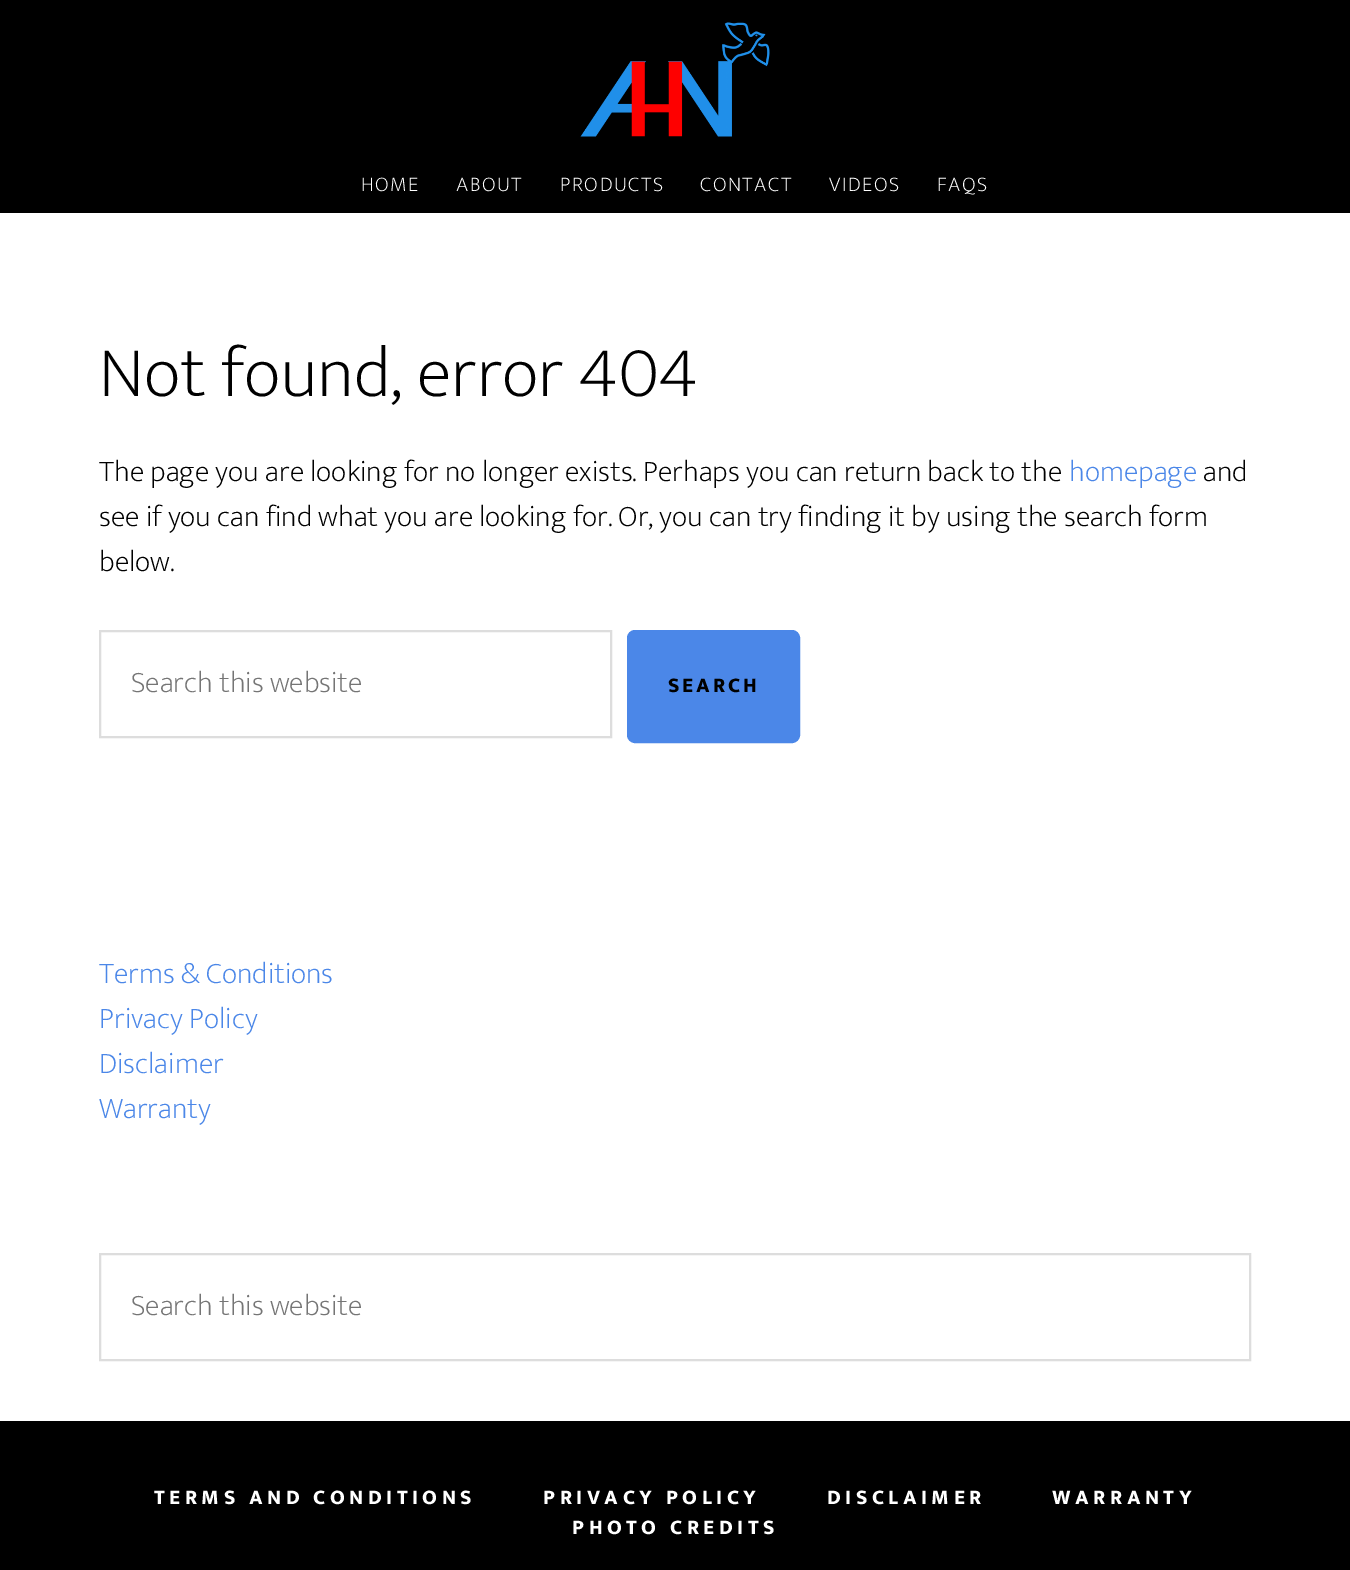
%!PS-Adobe-3.0
%%BoundingBox: 0 0 1350 1570
%%LanguageLevel: 3
%%Pages: 1
%%EndComments
%%BeginProlog
/rrect { 5 dict begin { /r /h /w /y /x } { exch def } forall
  x r add y moveto x w add y 2 copy h add r arct x w add y h add x 1 index r arct
  x y h add x y r arct x y 2 copy exch w add exch r arct closepath end } def
/drawimage { 5 dict begin { /h /w /y /x /name } { exch def } forall
  gsave x y translate w h scale
  w h 8 [w 0 0 h 0 0] name (r) file false 3 colorimage grestore end } def
%%EndProlog
%%BeginSetup
<< /PageSize [1350 1570] >> setpagedevice
%%EndSetup
%%Page: 1 1
0 1570 translate 1 -1 scale
4 setmiterlimit
1 setgray
0 0 1350 1570 rectfill
0 setgray
0 0 1350 213 rectfill
(images/1.raw) 580 22 190 115 drawimage
0.867 setgray
2 setlinewidth
100 631 511 106 rectstroke
0.294 0.529 0.91 setrgbcolor
628.5 631.5 170 110 6.5 rrect gsave fill grestore
3 setlinewidth
stroke
0.867 setgray
2 setlinewidth
100 1254 1150 106 rectstroke
0 setgray
0 1421 1350 149 rectfill
/EkMukta-ExtraLight [21 0 0 -21 0 0] selectfont
1 setgray
361 191 moveto 1.5 0 (HOME) ashow
456 191 moveto 1.5 0 (ABOUT) ashow
560 191 moveto 1.5 0 (PRODUCTS) ashow
700 191 moveto 1.5 0 (CONTACT) ashow
829 191 moveto 1.5 0 (VIDEOS) ashow
937 191 moveto 1.5 0 (FAQS) ashow
/EkMukta-ExtraLight [72 0 0 -72 0 0] selectfont
0 setgray
99 396 moveto (Not found, error 404) show
/EkMukta-ExtraLight [30 0 0 -30 0 0] selectfont
99 481 moveto (The page you are looking for no longer exists. Perhaps you can return back to the) show
0.294 0.529 0.91 setrgbcolor
1069 481 moveto (homepage) show
0 setgray
1203 481 moveto (and) show
99 526 moveto (see if you can find what you are looking for. Or, you can try finding it by using the search form) show
99 571 moveto (below.) show
0.459 setgray
131 692 moveto (Search this website) show
/EkMukta-ExtraBold [21 0 0 -21 0 0] selectfont
0 setgray
668 692 moveto 3 0 (SEARCH) ashow
/EkMukta-ExtraLight [30 0 0 -30 0 0] selectfont
0.294 0.529 0.91 setrgbcolor
99 983 moveto (Terms & Conditions) show
99 1028 moveto (Privacy Policy) show
99 1073 moveto (Disclaimer) show
99 1118 moveto (Warranty) show
0.459 setgray
131 1315 moveto (Search this website) show
/EkMukta-ExtraBold [21 0 0 -21 0 0] selectfont
1 setgray
154 1504 moveto 4.5 0 (TERMS AND CONDITIONS) ashow
543 1504 moveto 4.5 0 (PRIVACY POLICY) ashow
827 1504 moveto 4.5 0 (DISCLAIMER) ashow
1052 1504 moveto 4.5 0 (WARRANTY) ashow
572 1534 moveto 4.5 0 (PHOTO CREDITS) ashow
showpage
%%EOF
